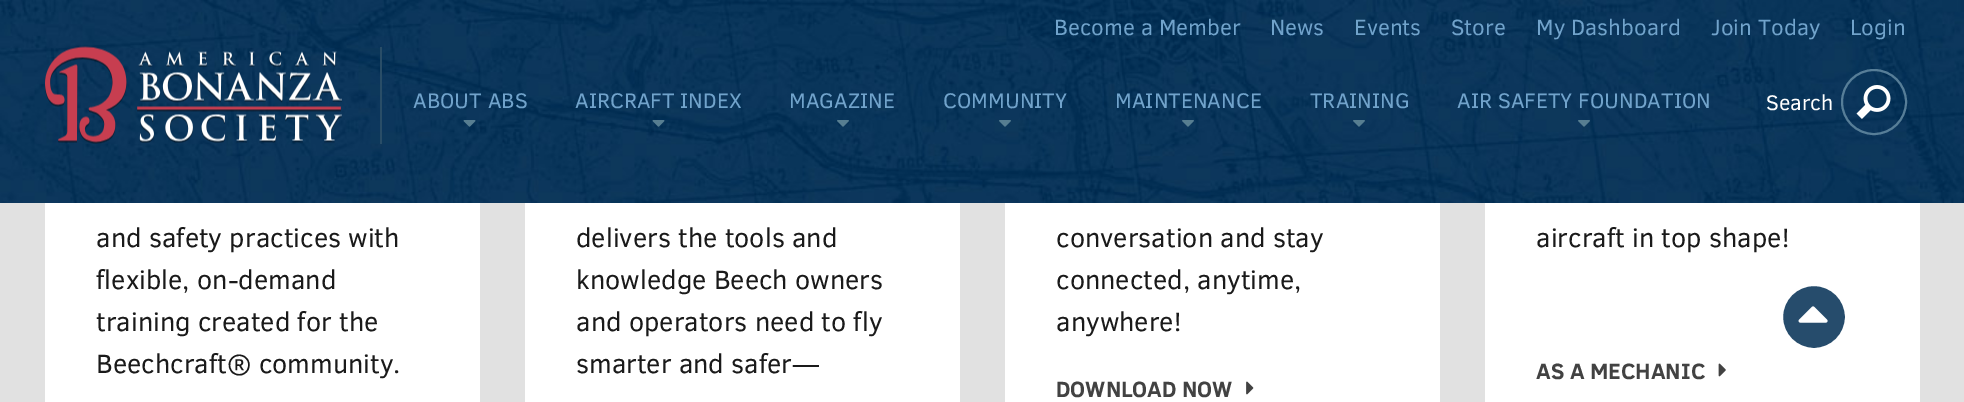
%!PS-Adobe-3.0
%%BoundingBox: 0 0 1964 402
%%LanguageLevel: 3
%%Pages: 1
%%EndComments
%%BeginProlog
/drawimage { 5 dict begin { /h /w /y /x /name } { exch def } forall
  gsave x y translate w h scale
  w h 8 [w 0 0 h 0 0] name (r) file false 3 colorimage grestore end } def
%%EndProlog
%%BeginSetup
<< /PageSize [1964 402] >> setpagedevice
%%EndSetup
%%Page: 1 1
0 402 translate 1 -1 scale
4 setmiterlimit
0.882 setgray
0 0 1964 402 rectfill
(images/1.raw) 0 0 1964 203 drawimage
0.161 0.302 0.404 setrgbcolor
380 47 2 97 rectfill
(images/2.raw) 45 46 297 98 drawimage
(images/3.raw) 463 120 13 7 drawimage
(images/4.raw) 652 120 13 7 drawimage
(images/5.raw) 837 120 12 7 drawimage
(images/6.raw) 999 120 12 7 drawimage
(images/7.raw) 1182 120 12 7 drawimage
(images/8.raw) 1353 120 12 7 drawimage
(images/9.raw) 1578 120 12 7 drawimage
0.341 0.494 0.596 setrgbcolor
2 setlinewidth
newpath 1874 102 32 0 360 arc closepath stroke
(images/10.raw) 1856 85 35 34 drawimage
1 setgray
45 203 435 199 rectfill
525 203 435 199 rectfill
1005 203 435 199 rectfill
(images/11.raw) 1246 381 8 14 drawimage
1485 203 435 199 rectfill
(images/12.raw) 1718 363 8 14 drawimage
0.149 0.298 0.424 setrgbcolor
newpath 1814 317 32 0 360 arc closepath gsave fill grestore
1 setgray
stroke
(images/13.raw) 1798 306 30 17 drawimage
/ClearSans-Regular [22.5 0 0 -22.5 0 0] selectfont
0.443 0.639 0.796 setrgbcolor
1054 35 moveto (Become a Member) show
1270 35 moveto (News) show
1354 35 moveto (Events) show
1451 35 moveto (Store) show
1536 35 moveto (My Dashboard) show
1711 35 moveto (Join Today) show
1850 35 moveto (Login) show
/ClearSans-Regular [21.6 0 0 -21.6 0 0] selectfont
413 108 moveto (ABOUT ABS) show
575 108 moveto (AIRCRAFT INDEX) show
789 108 moveto (MAGAZINE) show
943 108 moveto (COMMUNITY) show
1115 108 moveto (MAINTENANCE) show
1310 108 moveto (TRAINING) show
1457 108 moveto (AIR SAFETY FOUNDATION) show
1 setgray
1766 110 moveto (Search) show
/ClearSans-Regular [27 0 0 -27 0 0] selectfont
0.102 setgray
96 247 moveto (and safety practices with) show
96 289 moveto (flexible, on-demand) show
96 331 moveto (training created for the) show
96 373 moveto (Beechcraft® community.) show
576 247 moveto (delivers the tools and) show
576 289 moveto (knowledge Beech owners) show
576 331 moveto (and operators need to fly) show
576 373 moveto (smarter and safer—) show
1056 247 moveto (conversation and stay) show
1056 289 moveto (connected, anytime,) show
1056 331 moveto (anywhere!) show
/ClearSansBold-Bold [22.5 0 0 -22.5 0 0] selectfont
0.259 setgray
1056 397 moveto (DOWNLOAD NOW) show
/ClearSans-Regular [27 0 0 -27 0 0] selectfont
0.102 setgray
1536 247 moveto (aircraft in top shape!) show
/ClearSansBold-Bold [22.5 0 0 -22.5 0 0] selectfont
0.259 setgray
1536 379 moveto (AS A MECHANIC) show
showpage
%%EOF
